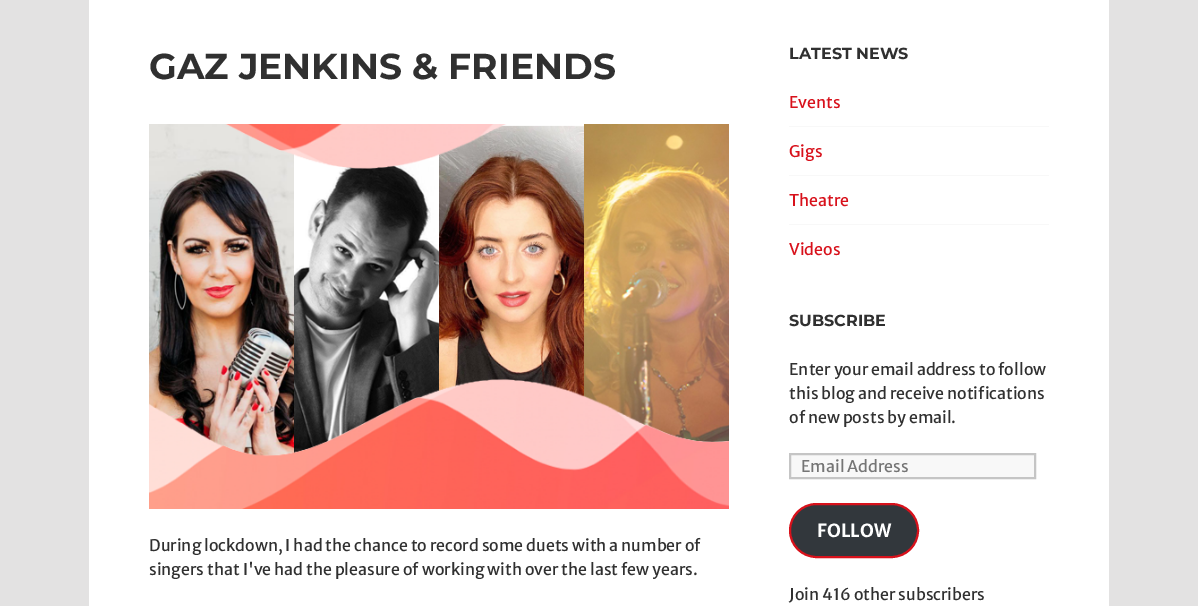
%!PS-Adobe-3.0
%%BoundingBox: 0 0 1198 606
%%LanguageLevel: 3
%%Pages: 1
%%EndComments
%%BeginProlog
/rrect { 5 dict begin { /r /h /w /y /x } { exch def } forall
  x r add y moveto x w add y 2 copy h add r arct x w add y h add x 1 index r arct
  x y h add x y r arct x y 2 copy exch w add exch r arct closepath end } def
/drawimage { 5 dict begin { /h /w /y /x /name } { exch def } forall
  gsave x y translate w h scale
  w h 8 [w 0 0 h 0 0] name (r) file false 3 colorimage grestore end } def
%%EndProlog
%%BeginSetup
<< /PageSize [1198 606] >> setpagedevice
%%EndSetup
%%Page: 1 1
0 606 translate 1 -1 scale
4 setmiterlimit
0.89 0.886 0.886 setrgbcolor
0 0 1198 606 rectfill
1 setgray
89 0 1020 606 rectfill
(images/1.raw) 149 124 580 385 drawimage
0.973 setgray
789 126 260 1 rectfill
789 175 260 1 rectfill
789 224 260 1 rectfill
newpath 790 454 moveto 1035 454 lineto 1035 478 lineto 790 478 lineto closepath gsave fill grestore
0.773 setgray
2 setlinewidth
stroke
0.196 0.216 0.235 setrgbcolor
790 504 128 53 26.5 rrect gsave fill grestore
0.847 0.067 0.106 setrgbcolor
stroke
/Montserrat-Thin [36 0 0 -36 0 0] selectfont
0.188 setgray
149 79 moveto (GAZ JENKINS & FRIENDS) show
/MerriweatherSans-Regular [16 0 0 -16 0 0] selectfont
149 551 moveto (During lockdown, I had the chance to record some duets with a number of) show
149 575 moveto (singers that I've had the pleasure of working with over the last few years.) show
/Montserrat-Thin [16 0 0 -16 0 0] selectfont
789 59 moveto (LATEST NEWS) show
/MerriweatherSans-Regular [16 0 0 -16 0 0] selectfont
0.847 0.067 0.106 setrgbcolor
789 108 moveto (Events) show
789 157 moveto (Gigs) show
789 206 moveto (Theatre) show
789 255 moveto (Videos) show
/Montserrat-Thin [16 0 0 -16 0 0] selectfont
0.188 setgray
789 326 moveto (SUBSCRIBE) show
/MerriweatherSans-Regular [16 0 0 -16 0 0] selectfont
789 375 moveto (Enter your email address to follow) show
789 399 moveto (this blog and receive notifications) show
789 423 moveto (of new posts by email.) show
0.459 setgray
801 472 moveto (Email Address) show
/MerriweatherSans-Bold [18 0 0 -18 0 0] selectfont
1 setgray
817 537 moveto (FOLLOW) show
/MerriweatherSans-Regular [16 0 0 -16 0 0] selectfont
0.188 setgray
789 600 moveto (Join 416 other subscribers) show
showpage
%%EOF
